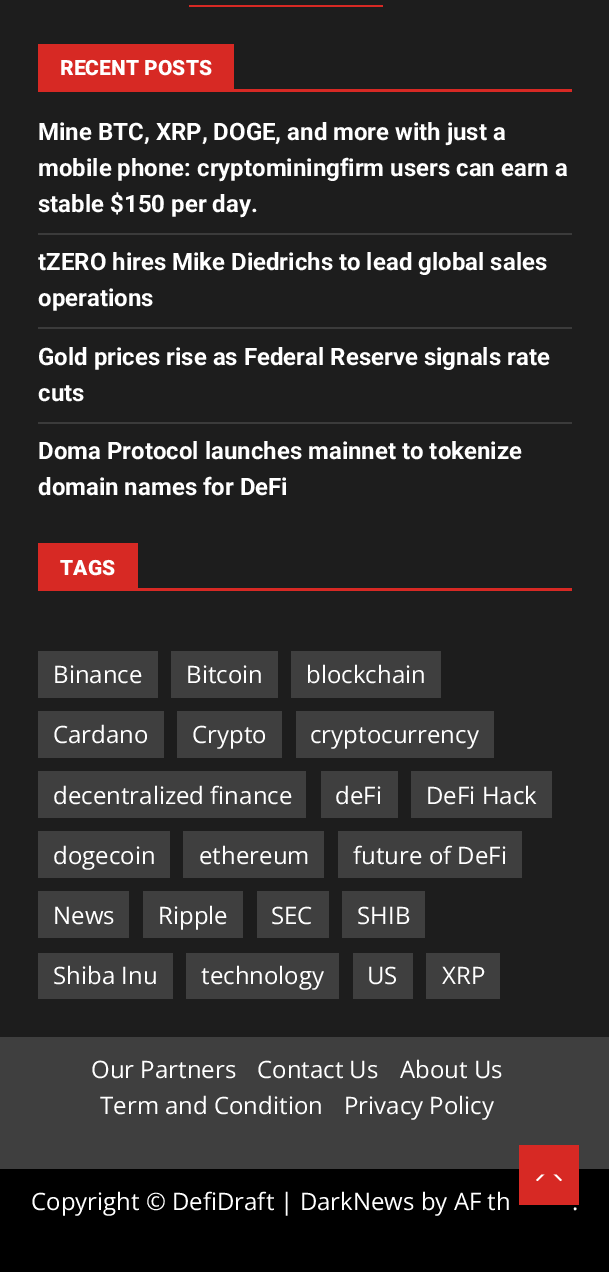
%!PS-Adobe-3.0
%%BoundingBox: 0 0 609 1272
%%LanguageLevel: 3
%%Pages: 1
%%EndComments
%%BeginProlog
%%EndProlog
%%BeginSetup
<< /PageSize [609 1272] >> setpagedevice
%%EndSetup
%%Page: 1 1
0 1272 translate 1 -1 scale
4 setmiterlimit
0 setgray
0 0 609 1272 rectfill
0.114 setgray
0 0 609 1037 rectfill
0.843 0.161 0.141 setrgbcolor
189 5 194 2 rectfill
38 89 534 3 rectfill
38 44 196 45 rectfill
0.231 setgray
38 233 534 2 rectfill
38 327 534 2 rectfill
38 422 534 2 rectfill
0.843 0.161 0.141 setrgbcolor
38 588 534 3 rectfill
38 543 100 45 rectfill
0.247 setgray
38 651 120 47 rectfill
171 651 107 47 rectfill
291 651 150 47 rectfill
38 711 126 47 rectfill
177 711 105 47 rectfill
296 711 198 47 rectfill
38 771 268 47 rectfill
321 771 77 47 rectfill
411 771 141 47 rectfill
38 831 132 47 rectfill
183 831 141 47 rectfill
338 831 184 47 rectfill
38 891 91 47 rectfill
143 891 100 47 rectfill
257 891 72 47 rectfill
342 891 83 47 rectfill
38 953 135 46 rectfill
186 953 153 46 rectfill
353 953 60 46 rectfill
426 953 74 46 rectfill
0 1037 609 132 rectfill
0.843 0.161 0.141 setrgbcolor
519 1145 60 60 rectfill
1 setgray
newpath 541.5 1182 moveto 556.5 1182 lineto 558.5 1182 560.5 1181 562 1180 curveto 556.5 1174.5 lineto 541.5 1174.5 lineto 536 1180 lineto 537.5 1181 539.5 1182 541.5 1182 curveto closepath fill
0.843 0.161 0.141 setrgbcolor
newpath 564 1185 moveto 534 1185 lineto 549 1170 lineto closepath fill
/Roboto-Black [21 0 0 -21 0 0] selectfont
1 setgray
60 75 moveto (RECENT POSTS) show
/Roboto-Bold [24 0 0 -24 0 0] selectfont
38 140 moveto (Mine BTC, XRP, DOGE, and more with just a) show
38 176 moveto (mobile phone: cryptominingfirm users can earn a) show
38 212 moveto (stable $150 per day.) show
38 270 moveto (tZERO hires Mike Diedrichs to lead global sales) show
38 306 moveto (operations) show
38 365 moveto (Gold prices rise as Federal Reserve signals rate) show
38 401 moveto (cuts) show
38 459 moveto (Doma Protocol launches mainnet to tokenize) show
38 495 moveto (domain names for DeFi) show
/Roboto-Black [21 0 0 -21 0 0] selectfont
60 575 moveto (TAGS) show
/OpenSans-Regular [24 0 0 -24 0 0] selectfont
53 683 moveto (Binance) show
186 683 moveto (Bitcoin) show
306 683 moveto (blockchain) show
53 743 moveto (Cardano) show
192 743 moveto (Crypto) show
310 743 moveto (cryptocurrency) show
53 804 moveto (decentralized finance) show
335 804 moveto (deFi) show
426 804 moveto (DeFi Hack) show
53 864 moveto (dogecoin) show
199 864 moveto (ethereum) show
353 864 moveto (future of DeFi) show
53 924 moveto (News) show
158 924 moveto (Ripple) show
271 924 moveto (SEC) show
357 924 moveto (SHIB) show
53 984 moveto (Shiba Inu) show
201 984 moveto (technology) show
367 984 moveto (US) show
442 984 moveto (XRP) show
91 1078 moveto (Our Partners) show
257 1078 moveto (Contact Us) show
400 1078 moveto (About Us) show
100 1114 moveto (Term and Condition) show
344 1114 moveto (Privacy Policy) show
31 1210 moveto (Copyright © DefiDraft | DarkNews by AF th) show
572 1210 moveto (.) show
showpage
%%EOF
